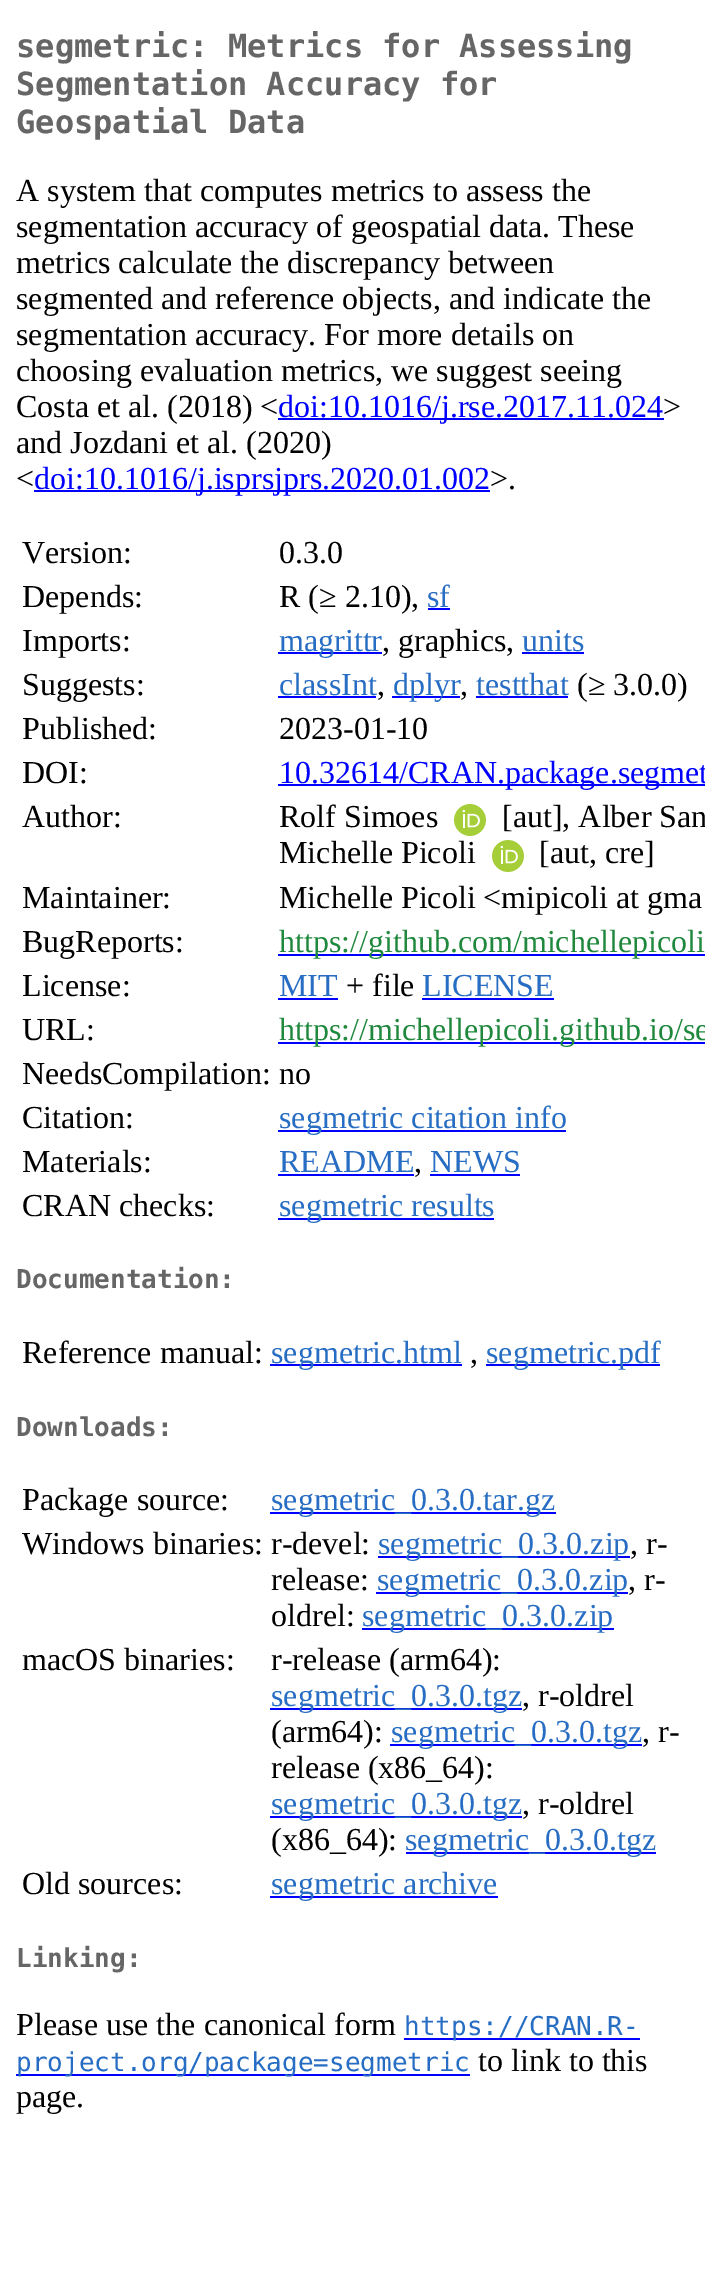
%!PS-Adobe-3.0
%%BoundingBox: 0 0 705 2292
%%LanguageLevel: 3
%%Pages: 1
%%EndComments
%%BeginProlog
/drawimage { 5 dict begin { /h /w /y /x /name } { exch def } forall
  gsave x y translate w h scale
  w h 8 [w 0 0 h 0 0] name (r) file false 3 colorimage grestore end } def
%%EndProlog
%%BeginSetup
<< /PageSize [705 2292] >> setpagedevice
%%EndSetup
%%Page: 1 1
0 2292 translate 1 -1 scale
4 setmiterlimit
1 setgray
0 0 705 2292 rectfill
0 0 1 setrgbcolor
278 418 386 2 rectfill
34 490 456 2 rectfill
428 608 22 2 rectfill
278 652 104 2 rectfill
522 652 62 2 rectfill
278 696 98 2 rectfill
392 696 68 2 rectfill
476 696 92 2 rectfill
278 784 427 2 rectfill
(images/1.raw) 454 804 32 32 drawimage
(images/1.raw) 492 840 32 32 drawimage
278 954 427 2 rectfill
278 998 60 2 rectfill
422 998 132 2 rectfill
278 1042 427 2 rectfill
278 1130 288 2 rectfill
278 1174 136 2 rectfill
430 1174 90 2 rectfill
278 1218 216 2 rectfill
270 1364 192 2 rectfill
486 1364 174 2 rectfill
270 1512 286 2 rectfill
378 1556 252 2 rectfill
376 1592 252 2 rectfill
362 1628 252 2 rectfill
270 1708 252 2 rectfill
390 1744 252 2 rectfill
270 1816 252 2 rectfill
406 1852 250 2 rectfill
270 1896 228 2 rectfill
404 2038 236 2 rectfill
16 2074 454 2 rectfill
/DejaVuSansMono-Bold [32 0 0 -32 0 0] selectfont
0.4 setgray
16 57 moveto (segmetric: Metrics for Assessing) show
16 95 moveto (Segmentation Accuracy for) show
16 133 moveto (Geospatial Data) show
/LiberationSerif-Regular [32 0 0 -32 0 0] selectfont
0 setgray
16 201 moveto (A system that computes metrics to assess the) show
16 237 moveto (segmentation accuracy of geospatial data. These) show
16 273 moveto (metrics calculate the discrepancy between) show
16 309 moveto (segmented and reference objects, and indicate the) show
16 345 moveto (segmentation accuracy. For more details on) show
16 381 moveto (choosing evaluation metrics, we suggest seeing) show
16 417 moveto (Costa et al. \(2018\) <) show
0 0 1 setrgbcolor
278 417 moveto (doi:10.1016/j.rse.2017.11.024) show
0 setgray
663 417 moveto (>) show
16 453 moveto (and Jozdani et al. \(2020\)) show
16 489 moveto (<) show
0 0 1 setrgbcolor
34 489 moveto (doi:10.1016/j.isprsjprs.2020.01.002) show
0 setgray
490 489 moveto (>.) show
22 563 moveto (Version:) show
279 563 moveto (0.3.0) show
22 607 moveto (Depends:) show
279 607 moveto (R \(≥ 2.10\),) show
0.153 0.427 0.765 setrgbcolor
427 607 moveto (sf) show
0 setgray
22 651 moveto (Imports:) show
0.153 0.427 0.765 setrgbcolor
279 651 moveto (magrittr) show
0 setgray
382 651 moveto (, graphics,) show
0.153 0.427 0.765 setrgbcolor
522 651 moveto (units) show
0 setgray
22 695 moveto (Suggests:) show
0.153 0.427 0.765 setrgbcolor
279 695 moveto (classInt) show
0 setgray
377 695 moveto (,) show
0.153 0.427 0.765 setrgbcolor
393 695 moveto (dplyr) show
0 setgray
460 695 moveto (,) show
0.153 0.427 0.765 setrgbcolor
476 695 moveto (testthat) show
0 setgray
577 695 moveto (\(≥ 3.0.0\)) show
22 739 moveto (Published:) show
279 739 moveto (2023-01-10) show
22 783 moveto (DOI:) show
0 0 1 setrgbcolor
279 783 moveto (10.32614/CRAN.package.segmet) show
0 setgray
22 827 moveto (Author:) show
279 827 moveto (Rolf Simoes) show
502 827 moveto ([aut], Alber San) show
279 863 moveto (Michelle Picoli) show
539 863 moveto ([aut, cre]) show
22 908 moveto (Maintainer:) show
279 908 moveto (Michelle Picoli <mipicoli at gma) show
22 952 moveto (BugReports:) show
0.122 0.533 0.239 setrgbcolor
279 952 moveto (https://github.com/michellepicoli) show
0 setgray
22 996 moveto (License:) show
0.153 0.427 0.765 setrgbcolor
279 996 moveto (MIT) show
0 setgray
346 996 moveto (+ file) show
0.153 0.427 0.765 setrgbcolor
422 996 moveto (LICENSE) show
0 setgray
22 1040 moveto (URL:) show
0.122 0.533 0.239 setrgbcolor
279 1040 moveto (https://michellepicoli.github.io/se) show
0 setgray
22 1084 moveto (NeedsCompilation: no) show
22 1128 moveto (Citation:) show
0.153 0.427 0.765 setrgbcolor
279 1128 moveto (segmetric citation info) show
0 setgray
22 1172 moveto (Materials:) show
0.153 0.427 0.765 setrgbcolor
279 1172 moveto (README) show
0 setgray
414 1172 moveto (,) show
0.153 0.427 0.765 setrgbcolor
430 1172 moveto (NEWS) show
0 setgray
22 1216 moveto (CRAN checks:) show
0.153 0.427 0.765 setrgbcolor
279 1216 moveto (segmetric results) show
/DejaVuSansMono-Bold [26 0 0 -26 0 0] selectfont
0.4 setgray
16 1288 moveto (Documentation:) show
/LiberationSerif-Regular [32 0 0 -32 0 0] selectfont
0 setgray
22 1363 moveto (Reference manual:) show
0.153 0.427 0.765 setrgbcolor
271 1363 moveto (segmetric.html) show
0 setgray
470 1363 moveto (,) show
0.153 0.427 0.765 setrgbcolor
486 1363 moveto (segmetric.pdf) show
/DejaVuSansMono-Bold [26 0 0 -26 0 0] selectfont
0.4 setgray
16 1436 moveto (Downloads:) show
/LiberationSerif-Regular [32 0 0 -32 0 0] selectfont
0 setgray
22 1510 moveto (Package source:) show
0.153 0.427 0.765 setrgbcolor
271 1510 moveto (segmetric_0.3.0.tar.gz) show
0 setgray
22 1554 moveto (Windows binaries: r-devel:) show
0.153 0.427 0.765 setrgbcolor
378 1554 moveto (segmetric_0.3.0.zip) show
0 setgray
630 1554 moveto (, r-) show
271 1590 moveto (release:) show
0.153 0.427 0.765 setrgbcolor
377 1590 moveto (segmetric_0.3.0.zip) show
0 setgray
628 1590 moveto (, r-) show
271 1626 moveto (oldrel:) show
0.153 0.427 0.765 setrgbcolor
362 1626 moveto (segmetric_0.3.0.zip) show
0 setgray
22 1670 moveto (macOS binaries:) show
271 1670 moveto (r-release \(arm64\):) show
0.153 0.427 0.765 setrgbcolor
271 1706 moveto (segmetric_0.3.0.tgz) show
0 setgray
522 1706 moveto (, r-oldrel) show
271 1742 moveto (\(arm64\):) show
0.153 0.427 0.765 setrgbcolor
391 1742 moveto (segmetric_0.3.0.tgz) show
0 setgray
642 1742 moveto (, r-) show
271 1778 moveto (release \(x86_64\):) show
0.153 0.427 0.765 setrgbcolor
271 1814 moveto (segmetric_0.3.0.tgz) show
0 setgray
522 1814 moveto (, r-oldrel) show
271 1850 moveto (\(x86_64\):) show
0.153 0.427 0.765 setrgbcolor
405 1850 moveto (segmetric_0.3.0.tgz) show
0 setgray
22 1894 moveto (Old sources:) show
0.153 0.427 0.765 setrgbcolor
271 1894 moveto (segmetric archive) show
/DejaVuSansMono-Bold [26 0 0 -26 0 0] selectfont
0.4 setgray
16 1967 moveto (Linking:) show
/LiberationSerif-Regular [32 0 0 -32 0 0] selectfont
0 setgray
16 2035 moveto (Please use the canonical form) show
/DejaVuSansMono-Regular [26 0 0 -26 0 0] selectfont
0.153 0.427 0.765 setrgbcolor
404 2035 moveto (https://CRAN.R-) show
16 2071 moveto (project.org/package=segmetric) show
/LiberationSerif-Regular [32 0 0 -32 0 0] selectfont
0 setgray
478 2071 moveto (to link to this) show
16 2107 moveto (page.) show
showpage
%%EOF
